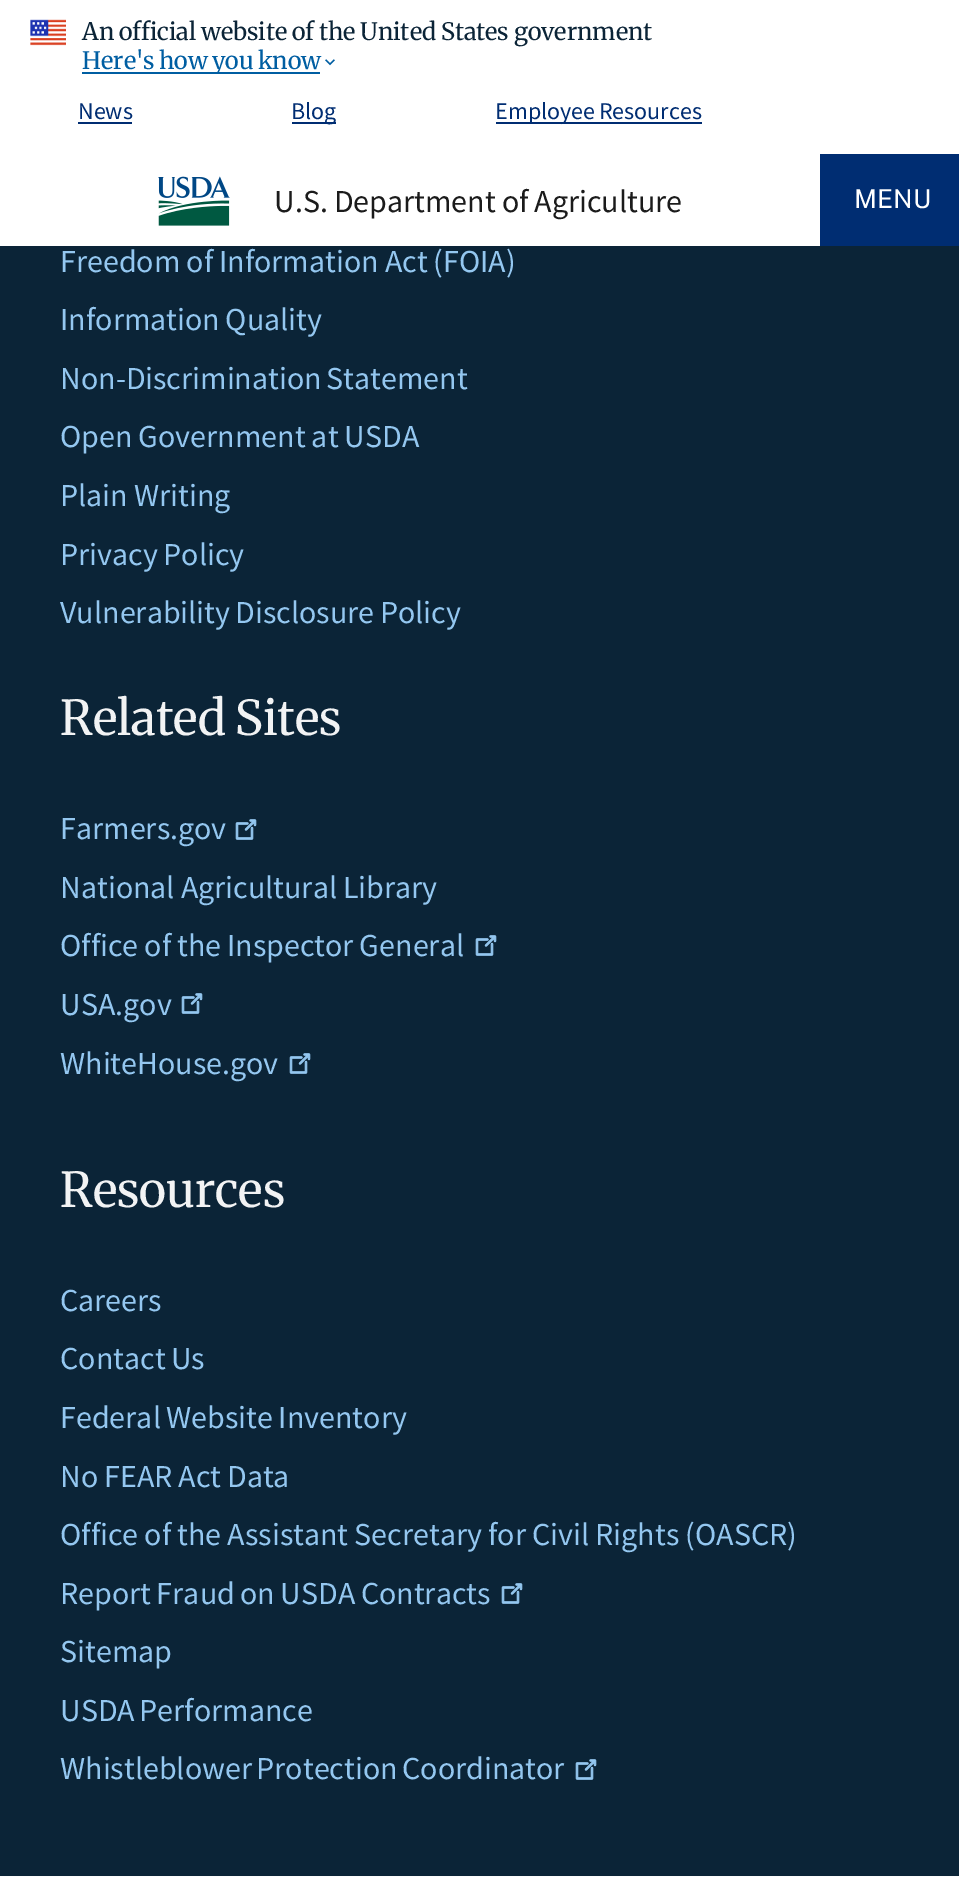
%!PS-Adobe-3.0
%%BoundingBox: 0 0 959 1877
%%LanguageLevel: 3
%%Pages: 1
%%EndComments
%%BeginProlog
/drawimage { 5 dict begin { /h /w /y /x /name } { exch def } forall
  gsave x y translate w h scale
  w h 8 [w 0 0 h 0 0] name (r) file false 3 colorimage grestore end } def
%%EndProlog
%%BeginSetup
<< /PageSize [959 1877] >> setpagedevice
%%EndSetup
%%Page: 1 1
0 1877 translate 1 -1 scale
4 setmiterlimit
0.988 setgray
0 0 959 1877 rectfill
1 setgray
0 0 959 246 rectfill
(images/1.raw) 30 19 36 27 drawimage
0 0.369 0.635 setrgbcolor
82 72 238 2 rectfill
(images/2.raw) 325 59 10 7 drawimage
0 0.176 0.447 setrgbcolor
78 122 54 2 rectfill
292 122 44 2 rectfill
496 122 206 2 rectfill
(images/3.raw) 158 176 72 50 drawimage
820 154 139 92 rectfill
0.043 0.141 0.216 setrgbcolor
0 246 959 1630 rectfill
(images/4.raw) 235 819 22 21 drawimage
(images/4.raw) 475 935 22 21 drawimage
(images/4.raw) 181 993 22 21 drawimage
(images/4.raw) 289 1053 22 21 drawimage
(images/4.raw) 501 1583 22 21 drawimage
(images/4.raw) 575 1759 22 21 drawimage
/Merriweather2-Regular [24 0 0 -24 0 0] selectfont
82 40 moveto -0.5 0 32 (An official website of the United States government) widthshow
gsave
30 48 900 26 rectclip
0 0.369 0.635 setrgbcolor
82 69 moveto -1 0 32 (Here's how you know) widthshow
grestore
/SourceSansPro-Regular [24 0 0 -24 0 0] selectfont
0 0.176 0.447 setrgbcolor
78 119 moveto (News) show
291 119 moveto (Blog) show
495 119 moveto -1 0 32 (Employee Resources) widthshow
/SourceSansPro-Regular [32 0 0 -32 0 0] selectfont
0.106 setgray
274 212 moveto -0.5 0 32 (U.S. Department of Agriculture) widthshow
/PublicSans-Regular [26 0 0 -26 0 0] selectfont
1 setgray
854 208 moveto (MENU) show
/SourceSansPro-Regular [32 0 0 -32 0 0] selectfont
0.58 0.78 0.941 setrgbcolor
60 272 moveto -0.5 0 32 (Freedom of Information Act \(FOIA\)) widthshow
60 330 moveto -1 0 32 (Information Quality) widthshow
60 389 moveto -2 0 32 (Non-Discrimination Statement) widthshow
60 447 moveto -0.5 0 32 (Open Government at USDA) widthshow
60 506 moveto (Plain Writing) show
60 565 moveto -1 0 32 (Privacy Policy) widthshow
60 623 moveto -1 0 32 (Vulnerability Disclosure Policy) widthshow
/Merriweather-Regular [48 0 0 -48 0 0] selectfont
0.949 0.953 0.957 setrgbcolor
60 735 moveto -1 0 32 (Related Sites) widthshow
/SourceSansPro-Regular [32 0 0 -32 0 0] selectfont
0.58 0.78 0.941 setrgbcolor
60 839 moveto (Farmers.gov) show
60 898 moveto -0.5 0 32 (National Agricultural Library) widthshow
60 956 moveto -0.5 0 32 (Office of the Inspector General) widthshow
60 1015 moveto (USA.gov) show
60 1074 moveto (WhiteHouse.gov) show
/Merriweather-Regular [48 0 0 -48 0 0] selectfont
0.949 0.953 0.957 setrgbcolor
60 1207 moveto (Resources) show
/SourceSansPro-Regular [32 0 0 -32 0 0] selectfont
0.58 0.78 0.941 setrgbcolor
60 1311 moveto (Careers) show
60 1369 moveto -1 0 32 (Contact Us) widthshow
60 1428 moveto -1 0 32 (Federal Website Inventory) widthshow
60 1487 moveto -0.5 0 32 (No FEAR Act Data) widthshow
60 1545 moveto -0.25 0 32 (Office of the Assistant Secretary for Civil Rights \(OASCR\)) widthshow
60 1604 moveto -1 0 32 (Report Fraud on USDA Contracts) widthshow
60 1662 moveto (Sitemap) show
60 1721 moveto -2 0 32 (USDA Performance) widthshow
60 1779 moveto -2 0 32 (Whistleblower Protection Coordinator) widthshow
showpage
%%EOF
